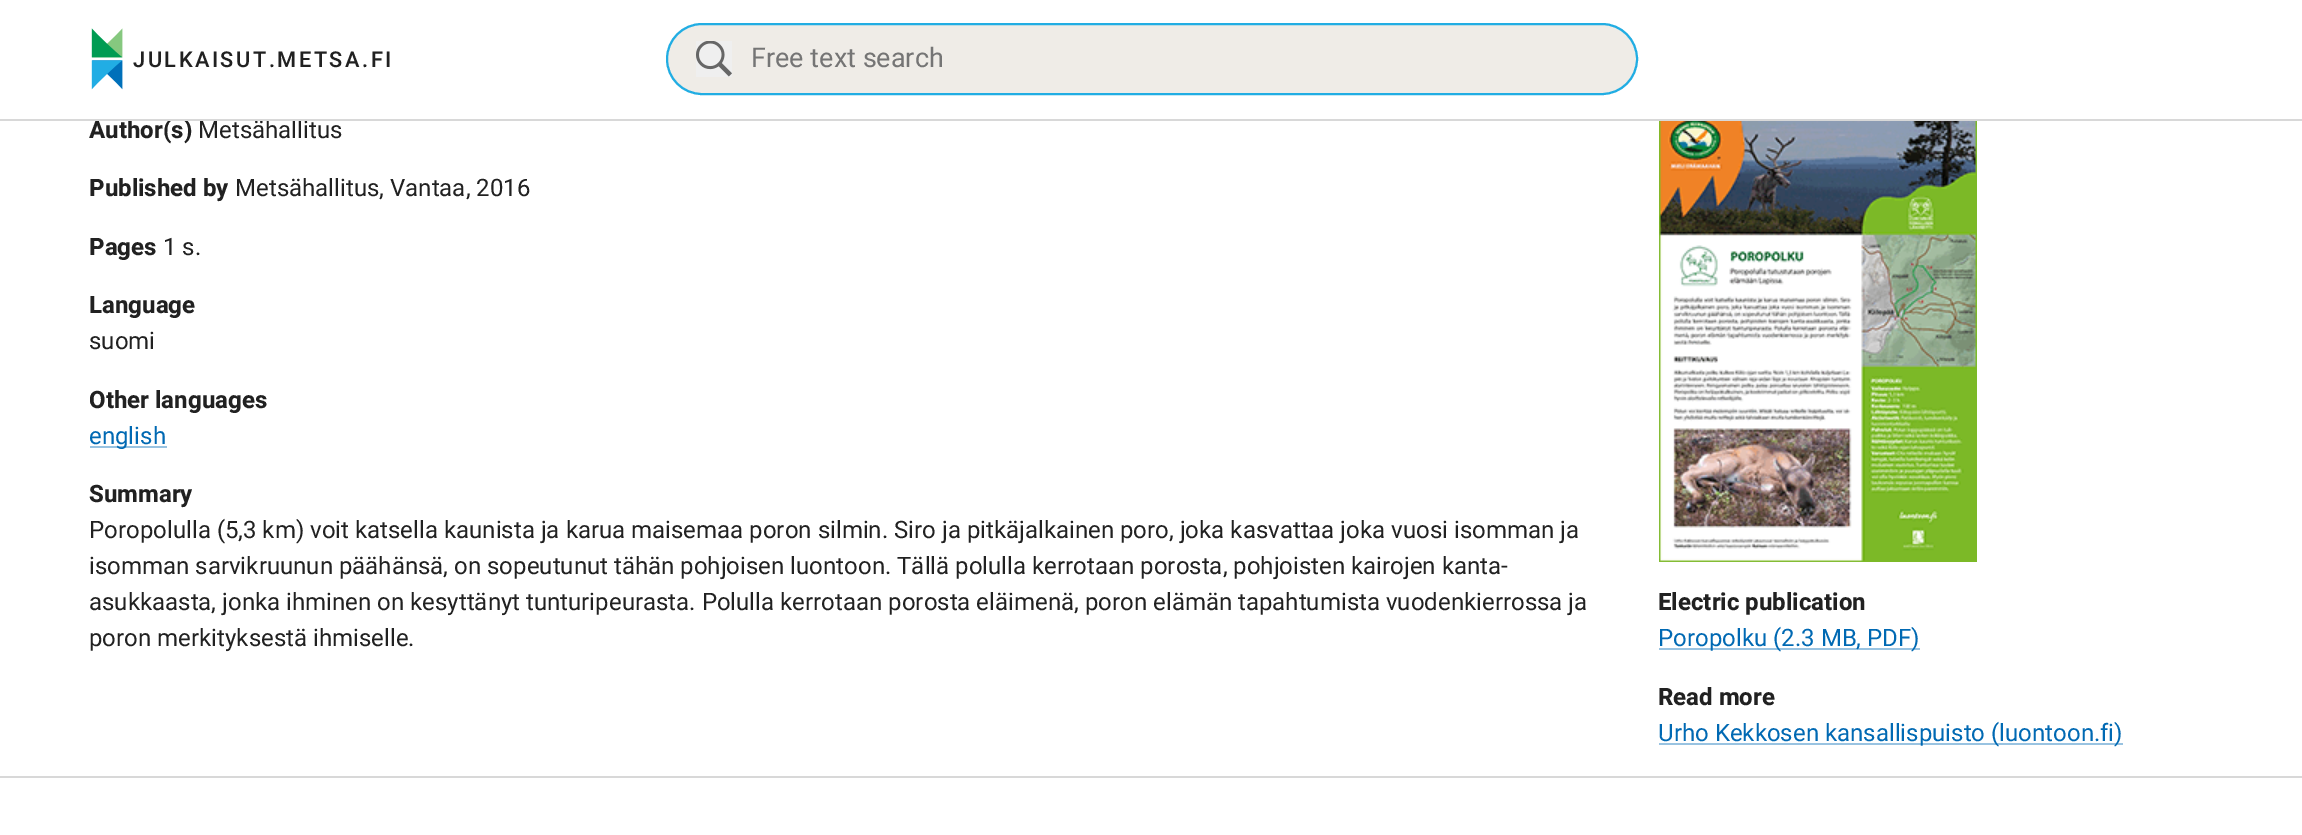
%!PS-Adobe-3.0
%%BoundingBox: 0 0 2302 835
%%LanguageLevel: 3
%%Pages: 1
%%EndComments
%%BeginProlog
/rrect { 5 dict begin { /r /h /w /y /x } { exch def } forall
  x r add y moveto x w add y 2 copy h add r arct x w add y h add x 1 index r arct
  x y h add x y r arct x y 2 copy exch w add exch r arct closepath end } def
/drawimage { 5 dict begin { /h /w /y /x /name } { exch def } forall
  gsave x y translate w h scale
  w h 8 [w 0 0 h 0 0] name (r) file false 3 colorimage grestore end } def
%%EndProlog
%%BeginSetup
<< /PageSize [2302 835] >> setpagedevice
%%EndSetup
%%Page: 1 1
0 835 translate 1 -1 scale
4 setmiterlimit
1 setgray
0 0 2302 835 rectfill
(images/1.raw) 91 28 32 62 drawimage
0.937 0.925 0.906 setrgbcolor
667 24 970 70 35 rrect gsave fill grestore
0.129 0.678 0.89 setrgbcolor
2 setlinewidth
stroke
0.937 setgray
696 41 36 36 rectfill
(images/2.raw) 696 41 36 36 drawimage
0.6 0.765 0.882 setrgbcolor
90 446 77 2 rectfill
(images/3.raw) 1659 121 318 441 drawimage
1659 648 261 2 rectfill
1659 743 464 2 rectfill
0.847 setgray
0 776 2302 2 rectfill
/Heebo-Medium [21.75 0 0 -21.75 0 0] selectfont
0.129 setgray
133 67 moveto 2.5 0 (JULKAISUT.METSA.FI) ashow
/Heebo-Regular [27 0 0 -27 0 0] selectfont
0.459 setgray
751 67 moveto (Free text search) show
/Heebo-Bold [24 0 0 -24 0 0] selectfont
0.129 setgray
89 138 moveto (Author\(s\)) show
/Heebo-Regular [24 0 0 -24 0 0] selectfont
198 138 moveto (Metsähallitus) show
0.847 setgray
0 119 2302 2 rectfill
/Heebo-Bold [24 0 0 -24 0 0] selectfont
0.129 setgray
89 196 moveto (Published by) show
/Heebo-Regular [24 0 0 -24 0 0] selectfont
235 196 moveto (Metsähallitus, Vantaa, 2016) show
/Heebo-Bold [24 0 0 -24 0 0] selectfont
89 255 moveto (Pages) show
/Heebo-Regular [24 0 0 -24 0 0] selectfont
163 255 moveto (1 s.) show
/Heebo-Bold [24 0 0 -24 0 0] selectfont
89 313 moveto (Language) show
/Heebo-Regular [24 0 0 -24 0 0] selectfont
89 349 moveto (suomi) show
/Heebo-Bold [24 0 0 -24 0 0] selectfont
89 408 moveto (Other languages) show
/Heebo-Regular [24 0 0 -24 0 0] selectfont
0 0.412 0.702 setrgbcolor
89 444 moveto (english) show
/Heebo-Bold [24 0 0 -24 0 0] selectfont
0.129 setgray
89 502 moveto (Summary) show
/Heebo-Regular [24 0 0 -24 0 0] selectfont
89 538 moveto (Poropolulla \(5,3 km\) voit katsella kaunista ja karua maisemaa poron silmin. Siro ja pitkäjalkainen poro, joka kasvattaa joka vuosi isomman ja) show
89 574 moveto (isomman sarvikruunun päähänsä, on sopeutunut tähän pohjoisen luontoon. Tällä polulla kerrotaan porosta, pohjoisten kairojen kanta-) show
89 610 moveto (asukkaasta, jonka ihminen on kesyttänyt tunturipeurasta. Polulla kerrotaan porosta eläimenä, poron elämän tapahtumista vuodenkierrossa ja) show
89 646 moveto (poron merkityksestä ihmiselle.) show
/Heebo-Bold [24 0 0 -24 0 0] selectfont
1658 610 moveto (Electric publication) show
/Heebo-Regular [24 0 0 -24 0 0] selectfont
0 0.412 0.702 setrgbcolor
1658 646 moveto (Poropolku \(2.3 MB, PDF\)) show
/Heebo-Bold [24 0 0 -24 0 0] selectfont
0.129 setgray
1658 705 moveto (Read more) show
/Heebo-Regular [24 0 0 -24 0 0] selectfont
0 0.412 0.702 setrgbcolor
1658 741 moveto (Urho Kekkosen kansallispuisto \(luontoon.fi\)) show
showpage
%%EOF
